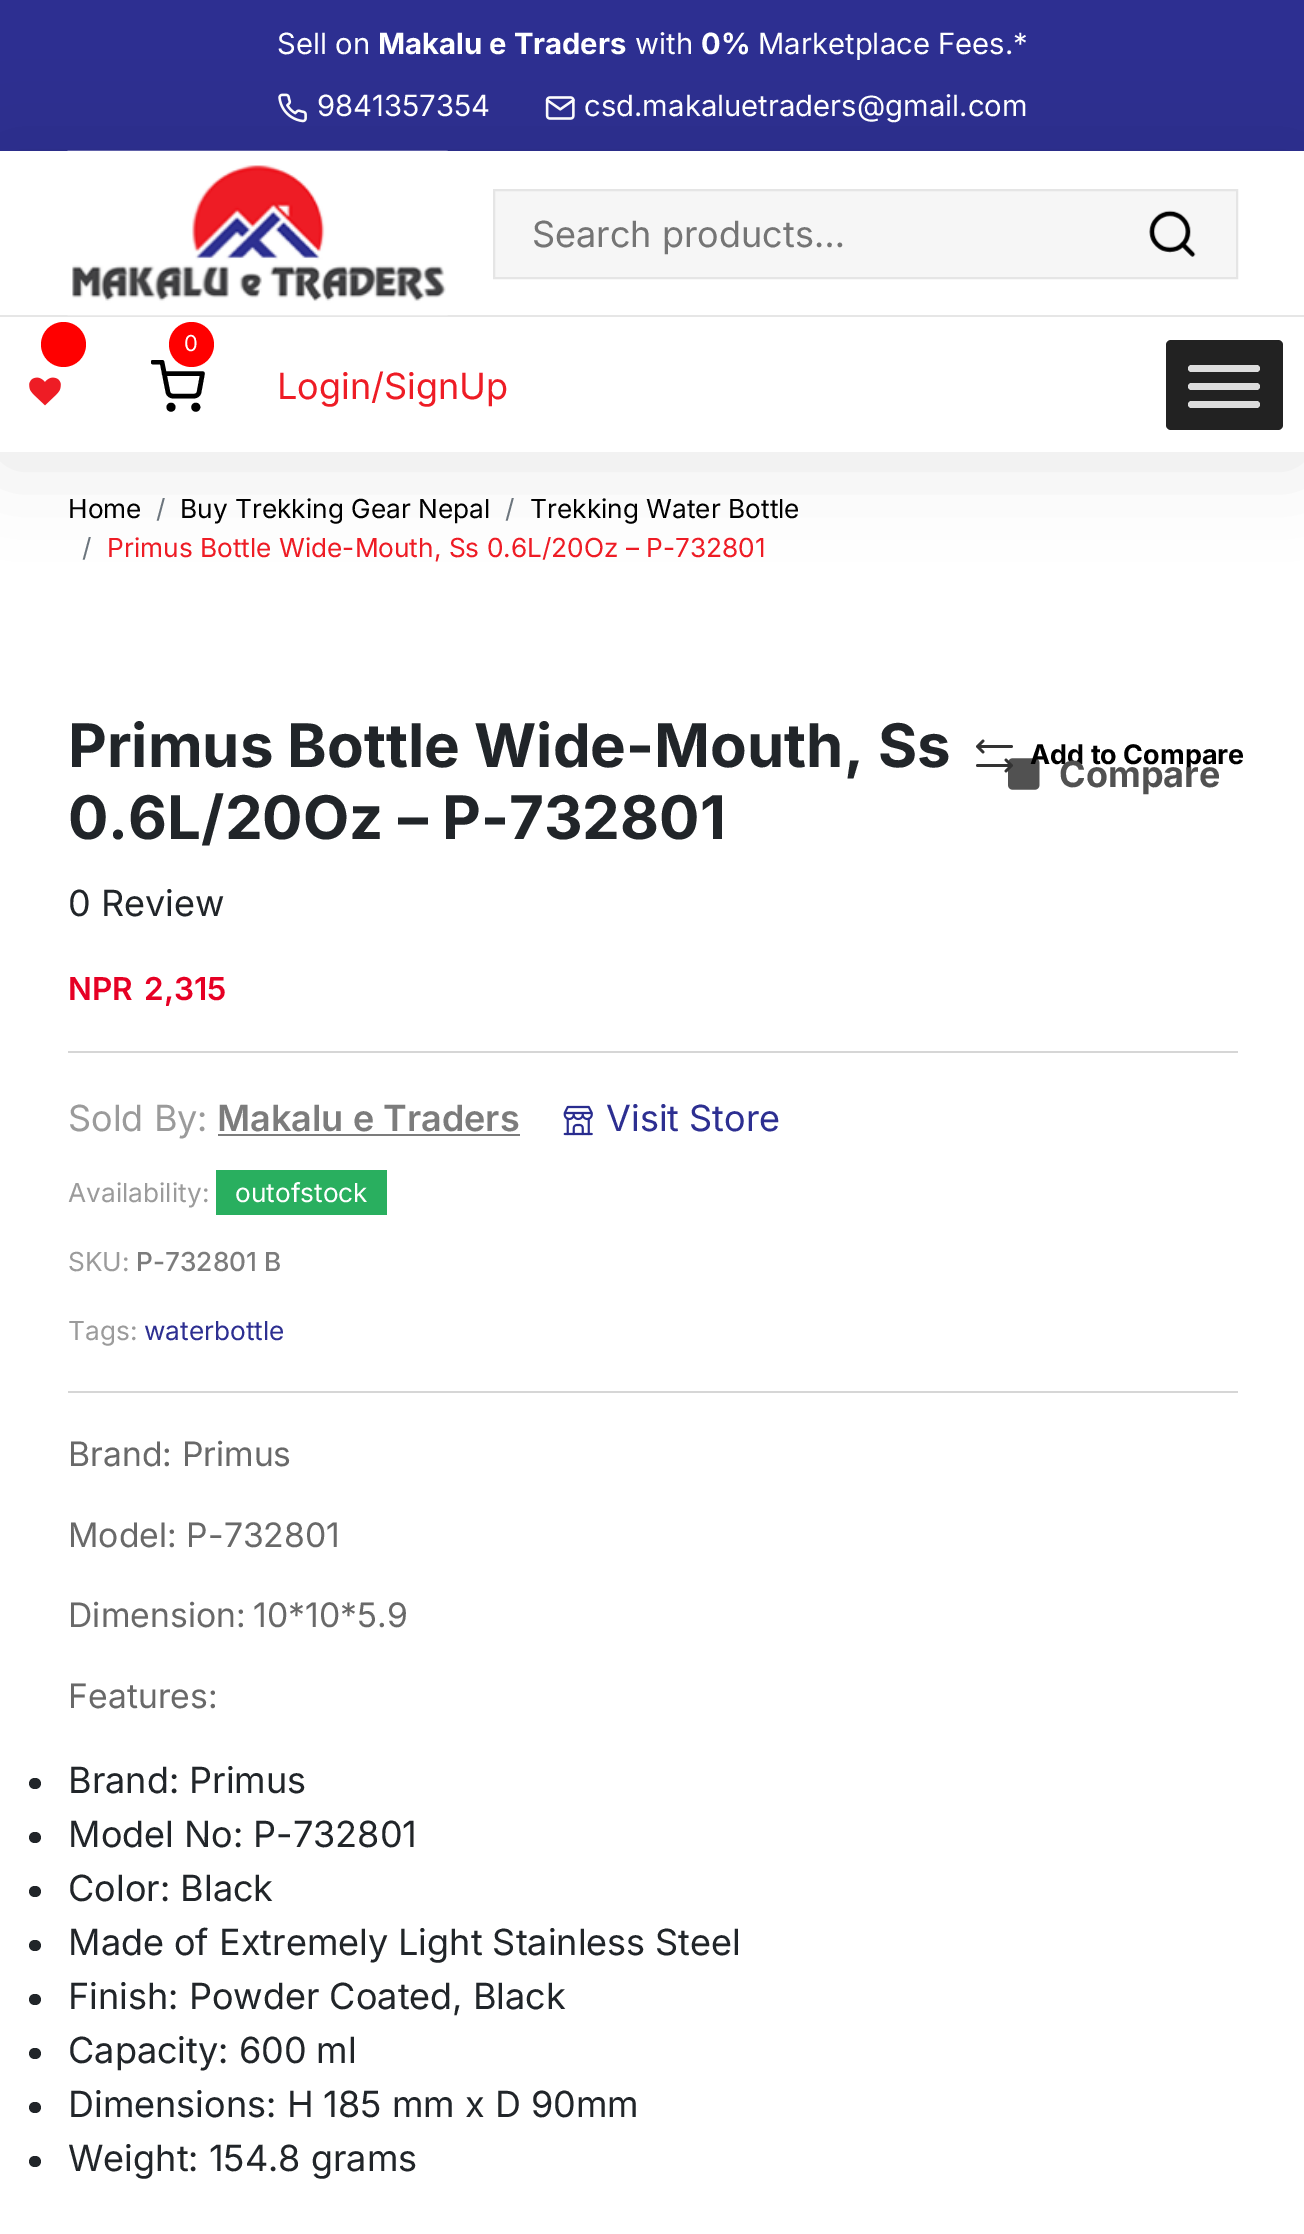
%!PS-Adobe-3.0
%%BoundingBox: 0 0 1304 2234
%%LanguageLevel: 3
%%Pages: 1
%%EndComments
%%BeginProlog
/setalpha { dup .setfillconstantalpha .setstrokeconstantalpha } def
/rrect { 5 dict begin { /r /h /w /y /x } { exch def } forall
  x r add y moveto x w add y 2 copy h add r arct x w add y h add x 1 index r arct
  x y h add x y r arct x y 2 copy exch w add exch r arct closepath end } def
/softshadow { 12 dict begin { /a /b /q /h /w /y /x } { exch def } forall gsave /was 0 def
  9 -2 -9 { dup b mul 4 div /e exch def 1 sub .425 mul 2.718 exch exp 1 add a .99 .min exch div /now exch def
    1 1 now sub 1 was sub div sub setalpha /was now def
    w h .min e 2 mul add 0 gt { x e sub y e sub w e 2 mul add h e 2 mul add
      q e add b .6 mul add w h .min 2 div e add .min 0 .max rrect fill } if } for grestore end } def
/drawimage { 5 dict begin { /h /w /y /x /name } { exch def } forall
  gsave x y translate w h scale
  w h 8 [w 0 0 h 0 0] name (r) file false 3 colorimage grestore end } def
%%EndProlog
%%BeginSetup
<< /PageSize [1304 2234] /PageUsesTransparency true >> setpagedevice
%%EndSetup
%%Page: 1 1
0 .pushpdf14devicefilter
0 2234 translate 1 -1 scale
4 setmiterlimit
1 setgray
0 0 1304 2234 rectfill
0.176 0.184 0.569 setrgbcolor
0 0 1304 151 rectfill
(images/1.raw) 278 93 29 30 drawimage
(images/2.raw) 545 96 30 24 drawimage
gsave
newpath 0 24 moveto 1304 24 lineto 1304 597 lineto 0 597 lineto closepath 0 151 moveto 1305 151 lineto 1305 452 lineto 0 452 lineto closepath eoclip newpath
0 setgray
0 160 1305 301 0 45 0.1 softshadow
grestore
0.902 setgray
0 315 1304 2 rectfill
(images/3.raw) 67 150 381 166 drawimage
0.965 setgray
newpath 494 190 moveto 1237 190 lineto 1237 278 lineto 494 278 lineto closepath gsave fill grestore
0.898 setgray
2 setlinewidth
stroke
(images/4.raw) 1149 210 47 47 drawimage
1 0 0 setrgbcolor
newpath 63.5 344.5 22.5 0 360 arc closepath fill
(images/5.raw) 29 377 32 29 drawimage
gsave
151 360 54 54 rectclip
0 setgray
4.5 setlinewidth
1 setlinecap
1 setlinejoin
newpath 153 362 moveto 162 362 lineto 168 392.5 lineto 168.5 394.5 170.5 396 172.5 396 curveto 194.5 396 lineto 196.5 396 198.5 394.5 199 392.5 curveto 202.5 373.5 lineto 164 373.5 lineto stroke
grestore
newpath 191.5 344.5 22.5 0 360 arc closepath fill
0 setgray
4.5 setlinewidth
newpath 171 407.2 2.2 0 360 arc closepath stroke
newpath 195.8 407.2 2.2 0 360 arc closepath stroke
0.133 setgray
1166 340 117 90 5 rrect fill
0.867 setgray
1188 365 72 7 3.5 rrect fill
1188 383 72 7 3.5 rrect fill
1188 401 72 7 3.5 rrect fill
0.839 setgray
68 1051 1170 2 rectfill
(images/6.raw) 1008 758 32 32 drawimage
0.2 setgray
2.8 setlinewidth
1 setlinecap
1 setlinejoin
newpath 1011.5 765.5 moveto 977.5 765.5 lineto 983 752 moveto 977.5 746.5 lineto 983 741 lineto 977.5 746.5 moveto 1011.5 746.5 lineto 1006 771 moveto 1011.5 765.5 lineto 1006 760 lineto stroke
0.839 setgray
68 1391 1170 2 rectfill
0.486 setgray
218 1134 302 2 rectfill
(images/7.raw) 563 1105 30 31 drawimage
0.161 0.686 0.373 setrgbcolor
216 1170 171 45 rectfill
0.129 0.145 0.161 setrgbcolor
29 1778 12 11 5.5 rrect fill
29 1832 12 11 5.5 rrect fill
29 1886 12 11 5.5 rrect fill
29 1940 12 11 5.5 rrect fill
29 1994 12 11 5.5 rrect fill
29 2048 12 11 5.5 rrect fill
29 2102 12 11 5.5 rrect fill
29 2156 12 11 5.5 rrect fill
/Inter-Regular [29.25 0 0 -29.25 0 0] selectfont
1 setgray
277 54 moveto (Sell on) show
/Inter-Bold [29.25 0 0 -29.25 0 0] selectfont
378 54 moveto (Makalu e Traders) show
/Inter-Regular [29.25 0 0 -29.25 0 0] selectfont
635 54 moveto (with) show
/Inter-Bold [29.25 0 0 -29.25 0 0] selectfont
701 54 moveto (0%) show
/Inter-Regular [29.25 0 0 -29.25 0 0] selectfont
758 54 moveto (Marketplace Fees.*) show
317 116 moveto (9841357354) show
584 116 moveto (csd.makaluetraders@gmail.com) show
/Inter-Regular [36 0 0 -36 0 0] selectfont
0.459 setgray
532 247 moveto (Search products…) show
/Inter-Regular [22 0 0 -22 0 0] selectfont
1 setgray
184 351 moveto (0) show
/Inter-Regular [36 0 0 -36 0 0] selectfont
0.933 0.11 0.145 setrgbcolor
277 399 moveto (Login/SignUp) show
/Inter-Regular [26.25 0 0 -26.25 0 0] selectfont
0 setgray
68 518 moveto (Home) show
0.424 0.459 0.49 setrgbcolor
156 518 moveto (/) show
0 setgray
180 518 moveto (Buy Trekking Gear Nepal) show
0.424 0.459 0.49 setrgbcolor
505 518 moveto (/) show
0 setgray
530 518 moveto (Trekking Water Bottle) show
0.424 0.459 0.49 setrgbcolor
82 557 moveto (/) show
0.933 0.11 0.145 setrgbcolor
107 557 moveto (Primus Bottle Wide-Mouth, Ss 0.6L/20Oz – P-732801) show
/Inter-Bold [60 0 0 -60 0 0] selectfont
0.129 0.145 0.161 setrgbcolor
68 767 moveto (Primus Bottle Wide-Mouth, Ss) show
68 839 moveto (0.6L/20Oz – P-732801) show
/Inter-Regular [36 0 0 -36 0 0] selectfont
68 916 moveto (0 Review) show
/Inter-SemiBold [31.5 0 0 -31.5 0 0] selectfont
0.902 0 0.141 setrgbcolor
68 1000 moveto (NPR) show
144 1000 moveto (2,315) show
/Inter-Bold [27 0 0 -27 0 0] selectfont
0 setgray
1030 764 moveto (Add to Compare) show
/Inter-Bold [36 0 0 -36 0 0] selectfont
0.318 setgray
1059 787 moveto (Compare) show
/Inter-Regular [36 0 0 -36 0 0] selectfont
0.608 setgray
68 1131 moveto (Sold By:) show
/Inter-SemiBold [36 0 0 -36 0 0] selectfont
0.486 setgray
217 1131 moveto (Makalu e Traders) show
/Inter-Regular [36 0 0 -36 0 0] selectfont
0.176 0.184 0.569 setrgbcolor
606 1131 moveto (Visit Store) show
/Inter-Regular [26.25 0 0 -26.25 0 0] selectfont
0.608 setgray
68 1202 moveto (Availability:) show
1 setgray
235 1202 moveto (outofstock) show
0.608 setgray
68 1271 moveto (SKU:) show
/Inter-Medium [26.25 0 0 -26.25 0 0] selectfont
0.486 setgray
136 1271 moveto (P-732801 B) show
/Inter-Regular [26.25 0 0 -26.25 0 0] selectfont
0.608 setgray
68 1340 moveto (Tags:) show
0.176 0.184 0.569 setrgbcolor
144 1340 moveto (waterbottle) show
/Inter-Regular [33.75 0 0 -33.75 0 0] selectfont
0.412 setgray
68 1466 moveto (Brand: Primus) show
68 1547 moveto (Model: P-732801) show
68 1627 moveto -2 0 32 (Dimension: 10*10*5.9) widthshow
68 1708 moveto (Features:) show
/Inter-Regular [36 0 0 -36 0 0] selectfont
0.129 0.145 0.161 setrgbcolor
68 1793 moveto (Brand: Primus) show
68 1847 moveto (Model No: P-732801) show
68 1901 moveto (Color: Black) show
68 1955 moveto (Made of Extremely Light Stainless Steel) show
68 2009 moveto (Finish: Powder Coated, Black) show
68 2063 moveto (Capacity: 600 ml) show
68 2117 moveto (Dimensions: H 185 mm x D 90mm) show
68 2171 moveto (Weight: 154.8 grams) show
.poppdf14devicefilter showpage
%%EOF
